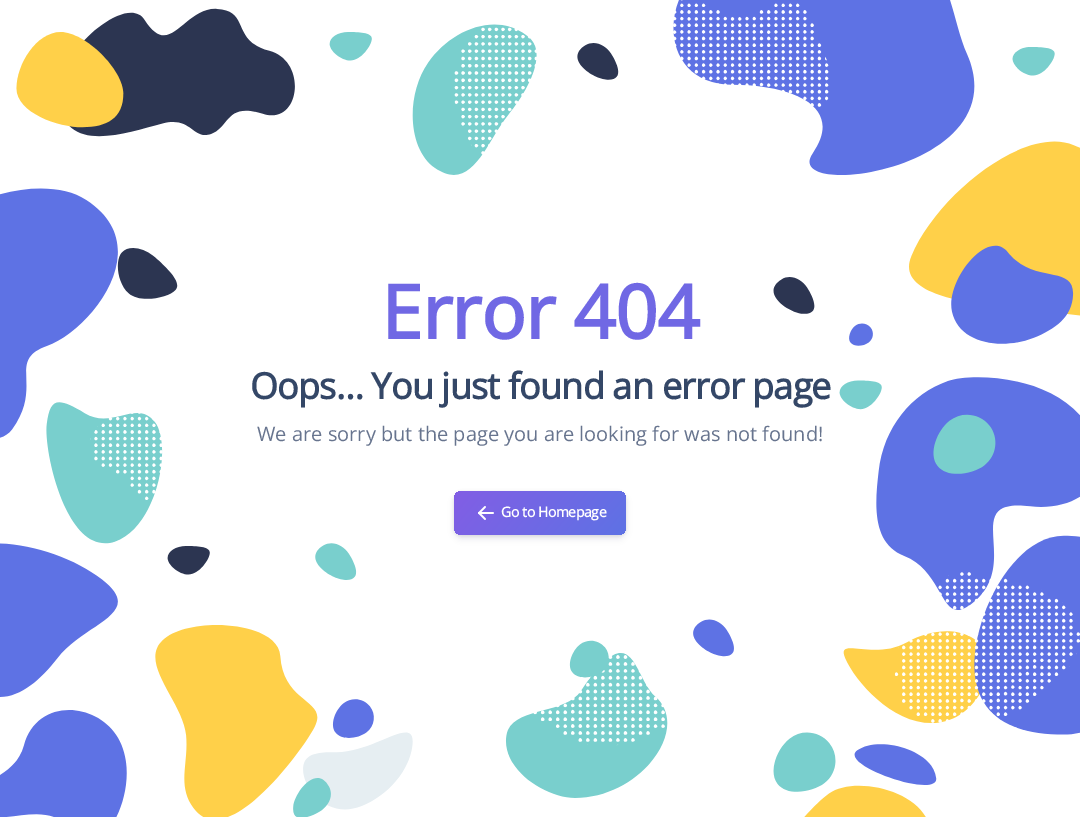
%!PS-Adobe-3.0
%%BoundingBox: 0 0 1080 817
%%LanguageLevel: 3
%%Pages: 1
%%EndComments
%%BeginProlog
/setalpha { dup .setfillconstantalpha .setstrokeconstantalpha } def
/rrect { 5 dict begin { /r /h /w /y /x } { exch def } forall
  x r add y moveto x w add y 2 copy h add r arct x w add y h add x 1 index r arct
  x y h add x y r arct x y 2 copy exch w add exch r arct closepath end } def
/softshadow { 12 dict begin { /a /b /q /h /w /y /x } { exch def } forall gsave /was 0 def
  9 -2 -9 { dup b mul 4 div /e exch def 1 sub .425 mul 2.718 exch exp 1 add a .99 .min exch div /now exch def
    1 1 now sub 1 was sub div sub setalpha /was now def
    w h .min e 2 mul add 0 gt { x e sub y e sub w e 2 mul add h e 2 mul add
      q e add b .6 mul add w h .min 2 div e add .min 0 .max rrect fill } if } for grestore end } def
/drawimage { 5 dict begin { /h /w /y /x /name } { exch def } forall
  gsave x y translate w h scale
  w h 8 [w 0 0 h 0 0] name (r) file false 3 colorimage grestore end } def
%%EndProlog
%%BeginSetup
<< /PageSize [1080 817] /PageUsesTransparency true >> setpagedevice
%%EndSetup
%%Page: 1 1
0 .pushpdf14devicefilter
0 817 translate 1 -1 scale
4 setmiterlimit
1 setgray
0 0 1080 817 rectfill
(images/1.raw) 0 0 1080 817 drawimage
0 setgray
454 492 172 44 8 1.5 0.08 softshadow
0.196 0.196 0.365 setrgbcolor
454 495 172 44 8 3 0.1 softshadow
gsave 454 491 172 44 8 rrect clip newpath
<< /ShadingType 2 /ColorSpace /DeviceRGB /Coords [601 564 479 462] /Extend [true true] /Function << /FunctionType 2 /Domain [0 1] /C0 [0.369 0.447 0.894] /C1 [0.51 0.369 0.894] /N 1 >> >> shfill grestore
(images/2.raw) 478 506 16 14 drawimage
/OpenSans-Bold [74.5 0 0 -74.5 0 0] selectfont
0.439 0.408 0.894 setrgbcolor
381 339 moveto -0.8 0 (Error 404) ashow
/OpenSans-Bold [36 0 0 -36 0 0] selectfont
0.204 0.278 0.404 setrgbcolor
250 399 moveto -0.8 0 (Oops… You just found an error page) ashow
/OpenSans-Regular [20 0 0 -20 0 0] selectfont
0.404 0.455 0.557 setrgbcolor
257 441 moveto (We are sorry but the page you are looking for was not found!) show
/OpenSans-Bold [14 0 0 -14 0 0] selectfont
1 setgray
501 517 moveto -0.4 0 (Go to Homepage) ashow
.poppdf14devicefilter showpage
%%EOF
